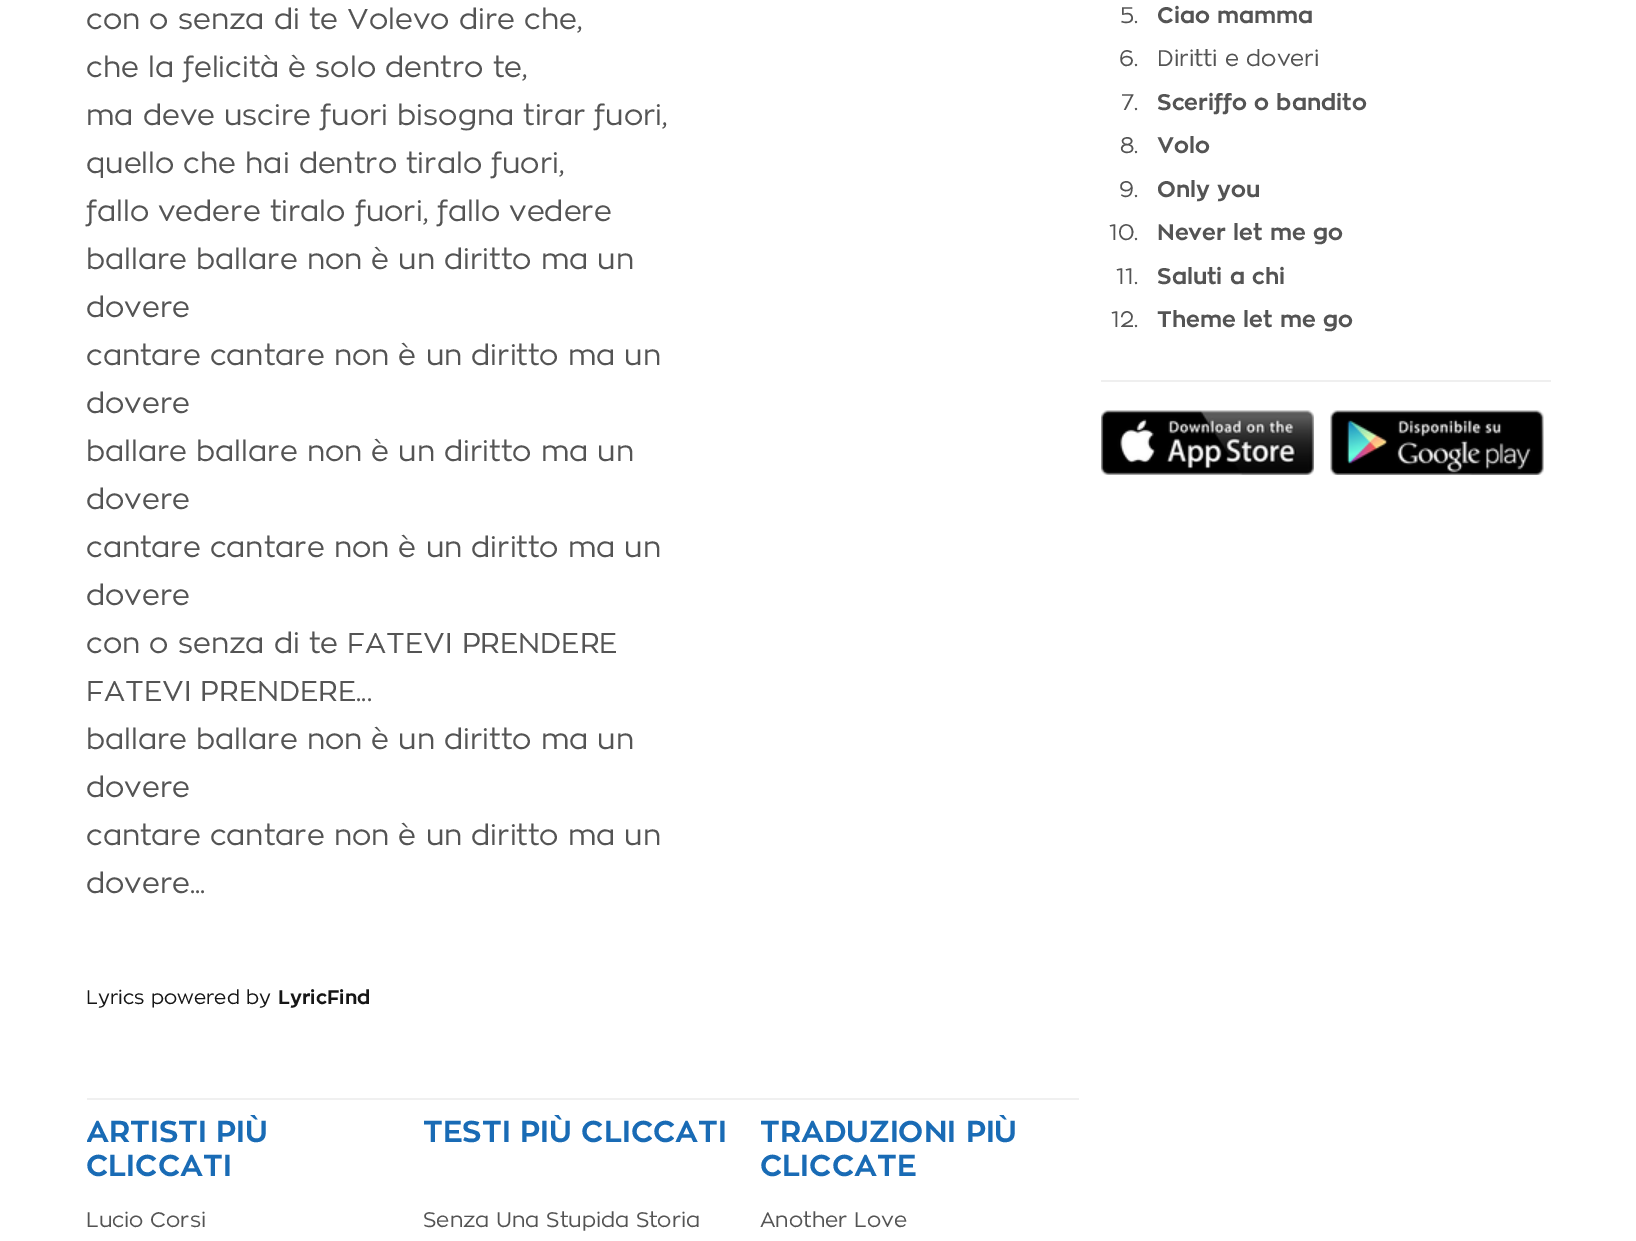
%!PS-Adobe-3.0
%%BoundingBox: 0 0 1636 1241
%%LanguageLevel: 3
%%Pages: 1
%%EndComments
%%BeginProlog
/drawimage { 5 dict begin { /h /w /y /x /name } { exch def } forall
  gsave x y translate w h scale
  w h 8 [w 0 0 h 0 0] name (r) file false 3 colorimage grestore end } def
%%EndProlog
%%BeginSetup
<< /PageSize [1636 1241] >> setpagedevice
%%EndSetup
%%Page: 1 1
0 1241 translate 1 -1 scale
4 setmiterlimit
1 setgray
0 0 1636 1241 rectfill
0.941 setgray
87 1098 992 2 rectfill
0.937 setgray
1101 380 450 2 rectfill
(images/1.raw) 1101 410 213 65 drawimage
(images/2.raw) 1330 410 214 65 drawimage
/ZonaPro-Regular [28.5 0 0 -28.5 0 0] selectfont
0.329 setgray
86 29 moveto (con o senza di te Volevo dire che,) show
86 77 moveto (che la felicità è solo dentro te,) show
86 125 moveto (ma deve uscire fuori bisogna tirar fuori,) show
86 173 moveto (quello che hai dentro tiralo fuori,) show
86 221 moveto (fallo vedere tiralo fuori, fallo vedere) show
86 269 moveto (ballare ballare non è un diritto ma un) show
86 317 moveto (dovere) show
86 365 moveto (cantare cantare non è un diritto ma un) show
86 413 moveto (dovere) show
86 461 moveto (ballare ballare non è un diritto ma un) show
86 509 moveto (dovere) show
86 557 moveto (cantare cantare non è un diritto ma un) show
86 605 moveto (dovere) show
86 653 moveto (con o senza di te FATEVI PRENDERE) show
86 701 moveto (FATEVI PRENDERE...) show
86 749 moveto (ballare ballare non è un diritto ma un) show
86 797 moveto (dovere) show
86 845 moveto (cantare cantare non è un diritto ma un) show
86 893 moveto (dovere...) show
/ZonaPro-Regular [19.5 0 0 -19.5 0 0] selectfont
0.086 setgray
86 1004 moveto (Lyrics powered by) show
/ZonaPro-Bold [19.5 0 0 -19.5 0 0] selectfont
278 1004 moveto (LyricFind) show
gsave
87 1115 306 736 rectclip
/ZonaPro-Bold [30 0 0 -30 0 0] selectfont
0.098 0.42 0.71 setrgbcolor
86 1142 moveto (ARTISTI PIÙ) show
grestore
/ZonaPro-Bold [30 0 0 -30 0 0] selectfont
0.098 0.42 0.71 setrgbcolor
86 1176 moveto (CLICCATI) show
/ZonaPro-Regular [21 0 0 -21 0 0] selectfont
0.329 setgray
86 1227 moveto (Lucio Corsi) show
gsave
423 1115 308 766 rectclip
/ZonaPro-Bold [30 0 0 -30 0 0] selectfont
0.098 0.42 0.71 setrgbcolor
423 1142 moveto (TESTI PIÙ CLICCATI) show
grestore
423 1227 moveto (Senza Una Stupida Storia) show
gsave
761 1115 307 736 rectclip
/ZonaPro-Bold [30 0 0 -30 0 0] selectfont
0.098 0.42 0.71 setrgbcolor
760 1142 moveto (TRADUZIONI PIÙ) show
grestore
/ZonaPro-Bold [30 0 0 -30 0 0] selectfont
0.098 0.42 0.71 setrgbcolor
760 1176 moveto (CLICCATE) show
/ZonaPro-Regular [21 0 0 -21 0 0] selectfont
0.329 setgray
760 1227 moveto (Another Love) show
/ZonaPro-Regular [22.5 0 0 -22.5 0 0] selectfont
1120 23 moveto (5.) show
/ZonaPro-Bold [22.5 0 0 -22.5 0 0] selectfont
1157 23 moveto (Ciao mamma) show
/ZonaPro-Regular [22.5 0 0 -22.5 0 0] selectfont
1119 66 moveto (6.) show
1157 66 moveto (Diritti e doveri) show
1121 110 moveto (7.) show
/ZonaPro-Bold [22.5 0 0 -22.5 0 0] selectfont
1157 110 moveto (Sceriffo o bandito) show
/ZonaPro-Regular [22.5 0 0 -22.5 0 0] selectfont
1120 153 moveto (8.) show
/ZonaPro-Bold [22.5 0 0 -22.5 0 0] selectfont
1157 153 moveto (Volo) show
/ZonaPro-Regular [22.5 0 0 -22.5 0 0] selectfont
1119 197 moveto (9.) show
/ZonaPro-Bold [22.5 0 0 -22.5 0 0] selectfont
1157 197 moveto (Only you) show
/ZonaPro-Regular [22.5 0 0 -22.5 0 0] selectfont
1109 240 moveto (10.) show
/ZonaPro-Bold [22.5 0 0 -22.5 0 0] selectfont
1157 240 moveto (Never let me go) show
/ZonaPro-Regular [22.5 0 0 -22.5 0 0] selectfont
1116 284 moveto (11.) show
/ZonaPro-Bold [22.5 0 0 -22.5 0 0] selectfont
1157 284 moveto (Saluti a chi) show
/ZonaPro-Regular [22.5 0 0 -22.5 0 0] selectfont
1111 327 moveto (12.) show
/ZonaPro-Bold [22.5 0 0 -22.5 0 0] selectfont
1157 327 moveto (Theme let me go) show
showpage
%%EOF
